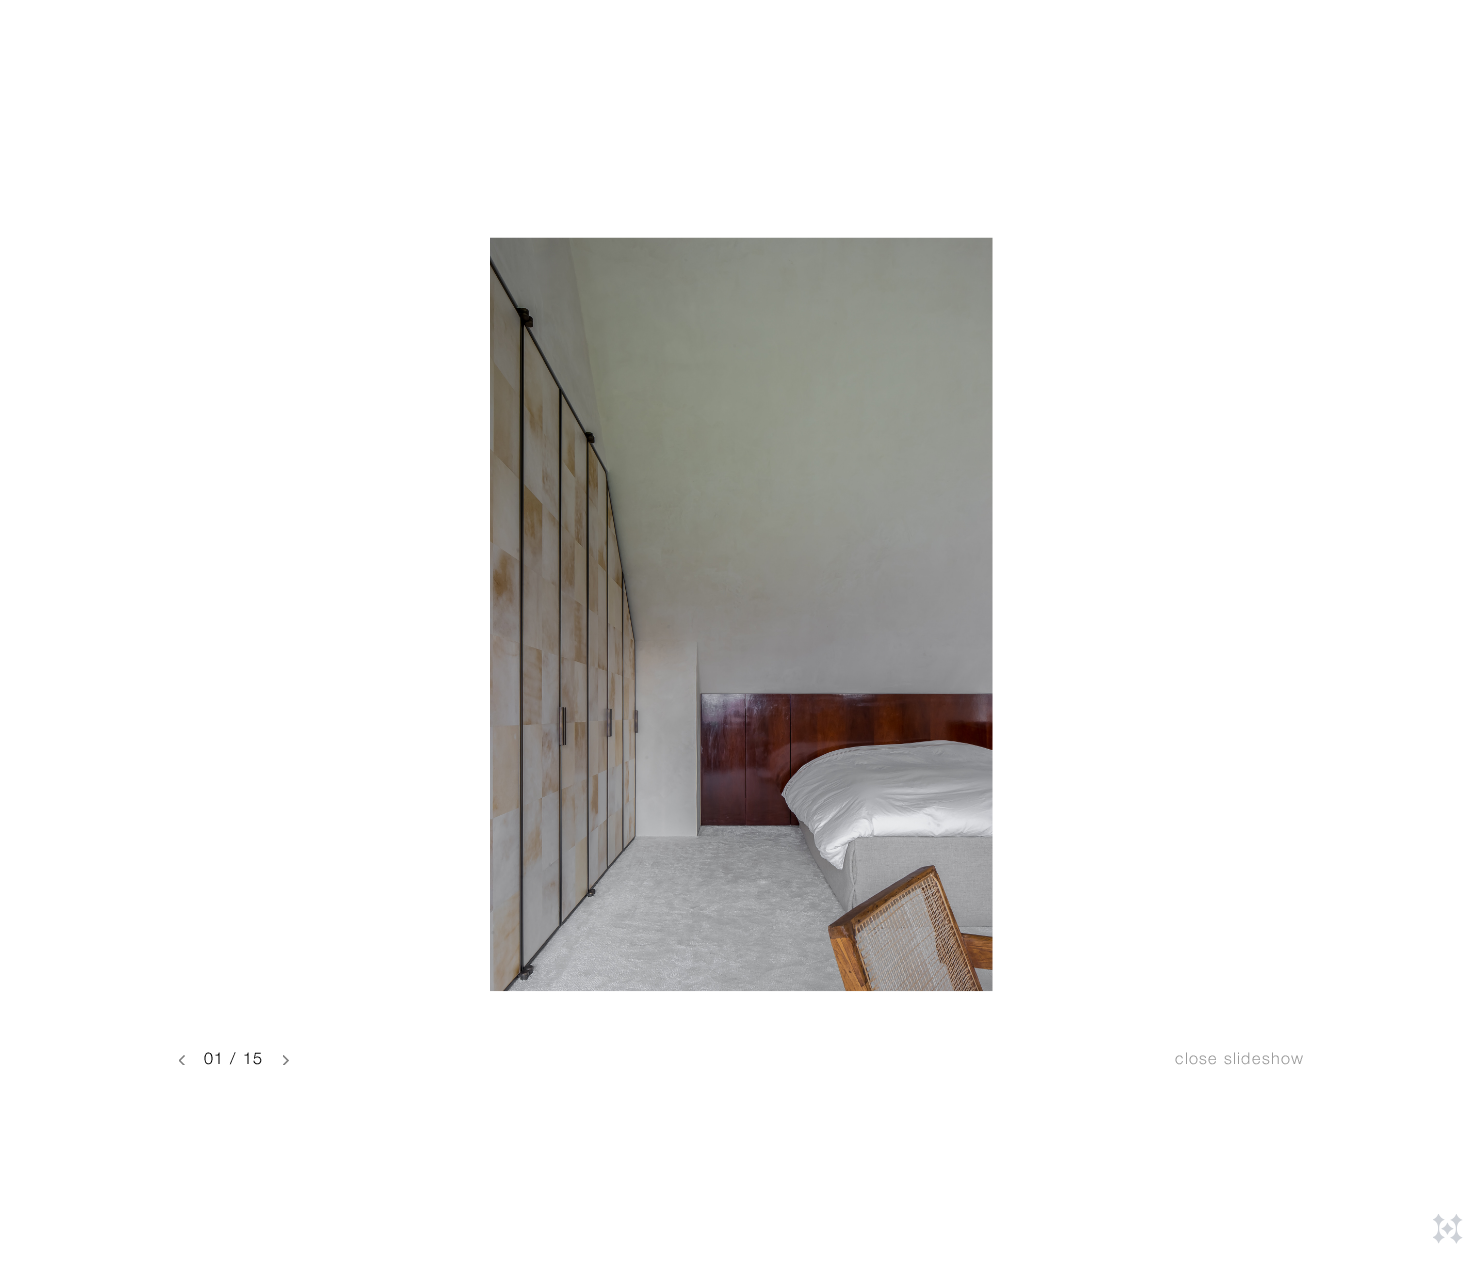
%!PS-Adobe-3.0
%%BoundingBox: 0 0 1482 1268
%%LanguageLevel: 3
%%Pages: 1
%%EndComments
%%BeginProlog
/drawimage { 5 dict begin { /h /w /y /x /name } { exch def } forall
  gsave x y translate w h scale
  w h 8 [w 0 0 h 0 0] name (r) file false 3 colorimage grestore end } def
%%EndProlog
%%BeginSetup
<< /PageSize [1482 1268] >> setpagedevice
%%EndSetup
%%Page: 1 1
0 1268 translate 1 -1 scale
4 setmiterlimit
1 setgray
0 0 1482 1268 rectfill
(images/1.raw) 490 237 503 755 drawimage
gsave
179 1055 6 10 rectclip
0.502 setgray
1.2 setlinewidth
newpath 184.5 1065.5 moveto 179.5 1060.5 lineto 184.5 1055.5 lineto stroke
grestore
gsave
283 1055 6 10 rectclip
0.502 setgray
1.2 setlinewidth
newpath 283 1055.5 moveto 288 1060.5 lineto 283 1065.5 lineto stroke
grestore
(images/2.raw) 1433 1214 30 30 drawimage
/HelveticaNeue-Light [16.25 0 0 -16.25 0 0] selectfont
0 setgray
204 1064 moveto 1.25 0 (01 / 15) ashow
0.6 setgray
1175 1064 moveto 1.25 0 (close slideshow) ashow
showpage
%%EOF
